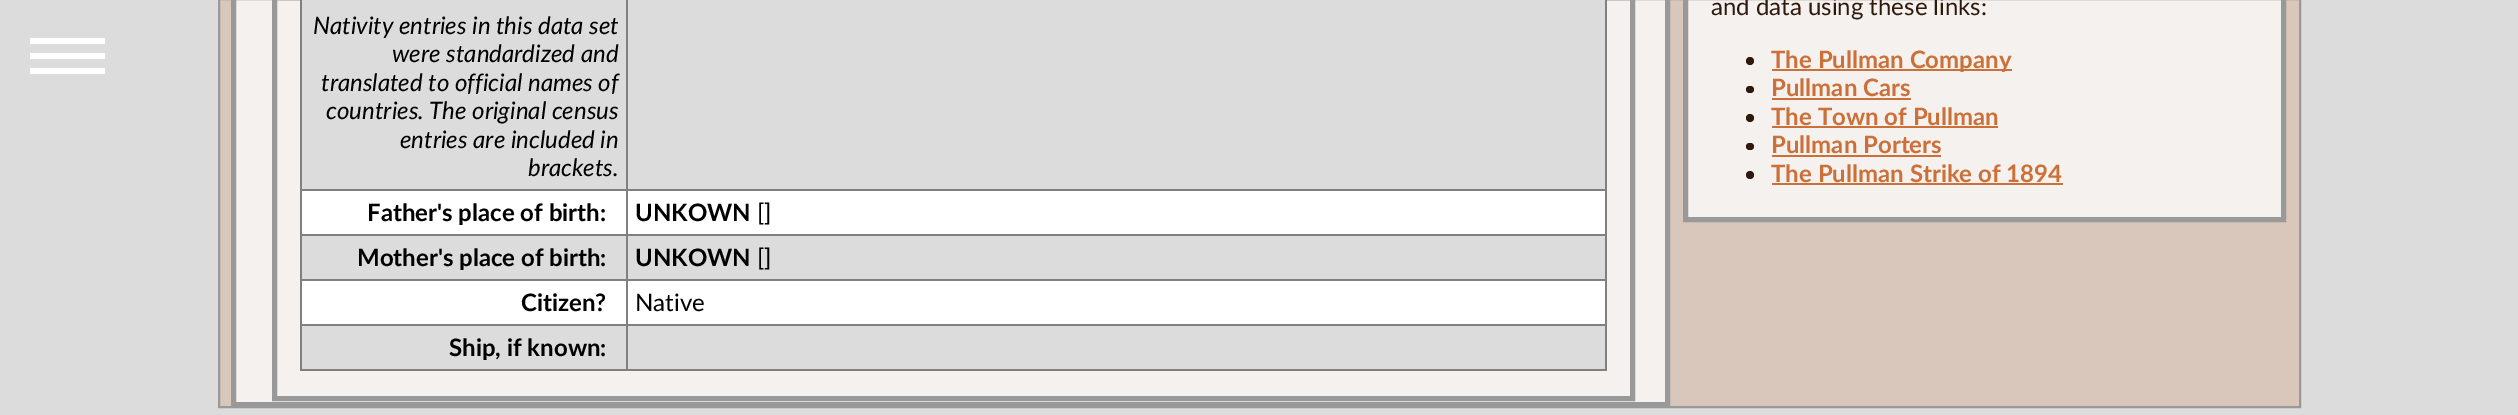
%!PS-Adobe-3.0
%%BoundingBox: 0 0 2518 415
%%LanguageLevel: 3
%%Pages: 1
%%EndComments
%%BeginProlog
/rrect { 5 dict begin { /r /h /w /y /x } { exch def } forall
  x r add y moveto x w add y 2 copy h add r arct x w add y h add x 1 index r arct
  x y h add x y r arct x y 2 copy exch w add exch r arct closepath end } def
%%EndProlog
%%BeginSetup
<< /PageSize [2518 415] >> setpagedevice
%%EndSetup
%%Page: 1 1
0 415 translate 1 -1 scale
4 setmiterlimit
0.863 setgray
0 0 2518 415 rectfill
1 setgray
30 53 75 6 rectfill
30 38 75 6 rectfill
30 68 75 6 rectfill
0.851 0.78 0.737 setrgbcolor
newpath 219 -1 moveto 2300 -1 lineto 2300 407 lineto 219 407 lineto closepath gsave fill grestore
0.6 setgray
2 setlinewidth
stroke
0.961 0.945 0.933 setrgbcolor
newpath 233.5 -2.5 moveto 1667.5 -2.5 lineto 1667.5 404.5 lineto 233.5 404.5 lineto closepath gsave fill grestore
0.6 setgray
5 setlinewidth
stroke
274.5 -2.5 1358 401 rectstroke
0.502 setgray
1605 0 2 371 rectfill
300 369 1307 2 rectfill
300 0 2 371 rectfill
0.863 setgray
302 0 324 189 rectfill
628 0 977 189 rectfill
0.502 setgray
626 189 981 2 rectfill
626 234 981 2 rectfill
626 279 981 2 rectfill
626 324 981 2 rectfill
626 324 2 47 rectfill
300 324 327 2 rectfill
626 279 2 47 rectfill
300 279 327 2 rectfill
626 234 2 47 rectfill
300 234 327 2 rectfill
626 189 2 47 rectfill
300 189 327 2 rectfill
626 0 2 191 rectfill
1 setgray
302 191 324 43 rectfill
628 191 977 43 rectfill
0.863 setgray
302 236 324 43 rectfill
628 236 977 43 rectfill
1 setgray
302 281 324 43 rectfill
628 281 977 43 rectfill
0.863 setgray
302 326 324 43 rectfill
628 326 977 43 rectfill
0.961 0.945 0.933 setrgbcolor
newpath 1685.5 -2.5 moveto 2283.5 -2.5 lineto 2283.5 219.5 lineto 1685.5 219.5 lineto closepath gsave fill grestore
0.6 setgray
stroke
0.184 0.098 0.047 setrgbcolor
newpath 1750 61 4 0 360 arc closepath fill
0.8 0.439 0.227 setrgbcolor
1772 69 240 2 rectfill
0.184 0.098 0.047 setrgbcolor
1746 86 8 7 3.5 rrect fill
0.8 0.439 0.227 setrgbcolor
1772 98 139 2 rectfill
0.184 0.098 0.047 setrgbcolor
newpath 1750 118 4 0 360 arc closepath fill
0.8 0.439 0.227 setrgbcolor
1772 126 226 2 rectfill
0.184 0.098 0.047 setrgbcolor
1746 143 8 7 3.5 rrect fill
0.8 0.439 0.227 setrgbcolor
1772 155 169 2 rectfill
0.184 0.098 0.047 setrgbcolor
newpath 1750 175 4 0 360 arc closepath fill
0.8 0.439 0.227 setrgbcolor
1772 183 291 2 rectfill
/Lato-Italic [24 0 0 -24 0 0] selectfont
0 setgray
313 34 moveto (Nativity entries in this data set) show
392 62 moveto (were standardized and) show
321 91 moveto (translated to official names of) show
326 119 moveto (countries. The original census) show
400 148 moveto (entries are included in) show
528 176 moveto (brackets.) show
/Lato-Bold [24 0 0 -24 0 0] selectfont
367 221 moveto (Father's place of birth:) show
635 221 moveto (UNKOWN) show
/Lato-Regular [24 0 0 -24 0 0] selectfont
757 221 moveto ([]) show
/Lato-Bold [24 0 0 -24 0 0] selectfont
357 266 moveto (Mother's place of birth:) show
635 266 moveto (UNKOWN) show
/Lato-Regular [24 0 0 -24 0 0] selectfont
757 266 moveto ([]) show
/Lato-Bold [24 0 0 -24 0 0] selectfont
521 311 moveto (Citizen?) show
/Lato-Regular [24 0 0 -24 0 0] selectfont
635 311 moveto (Native) show
/Lato-Bold [24 0 0 -24 0 0] selectfont
449 356 moveto (Ship, if known:) show
/Lato-Regular [24 0 0 -24 0 0] selectfont
0.184 0.098 0.047 setrgbcolor
1711 15 moveto (and data using these links:) show
/Lato-Bold [24 0 0 -24 0 0] selectfont
0.8 0.439 0.227 setrgbcolor
1771 68 moveto (The Pullman Company) show
1771 96 moveto (Pullman Cars) show
1771 125 moveto (The Town of Pullman) show
1771 153 moveto (Pullman Porters) show
1771 182 moveto (The Pullman Strike of 1894) show
showpage
%%EOF
